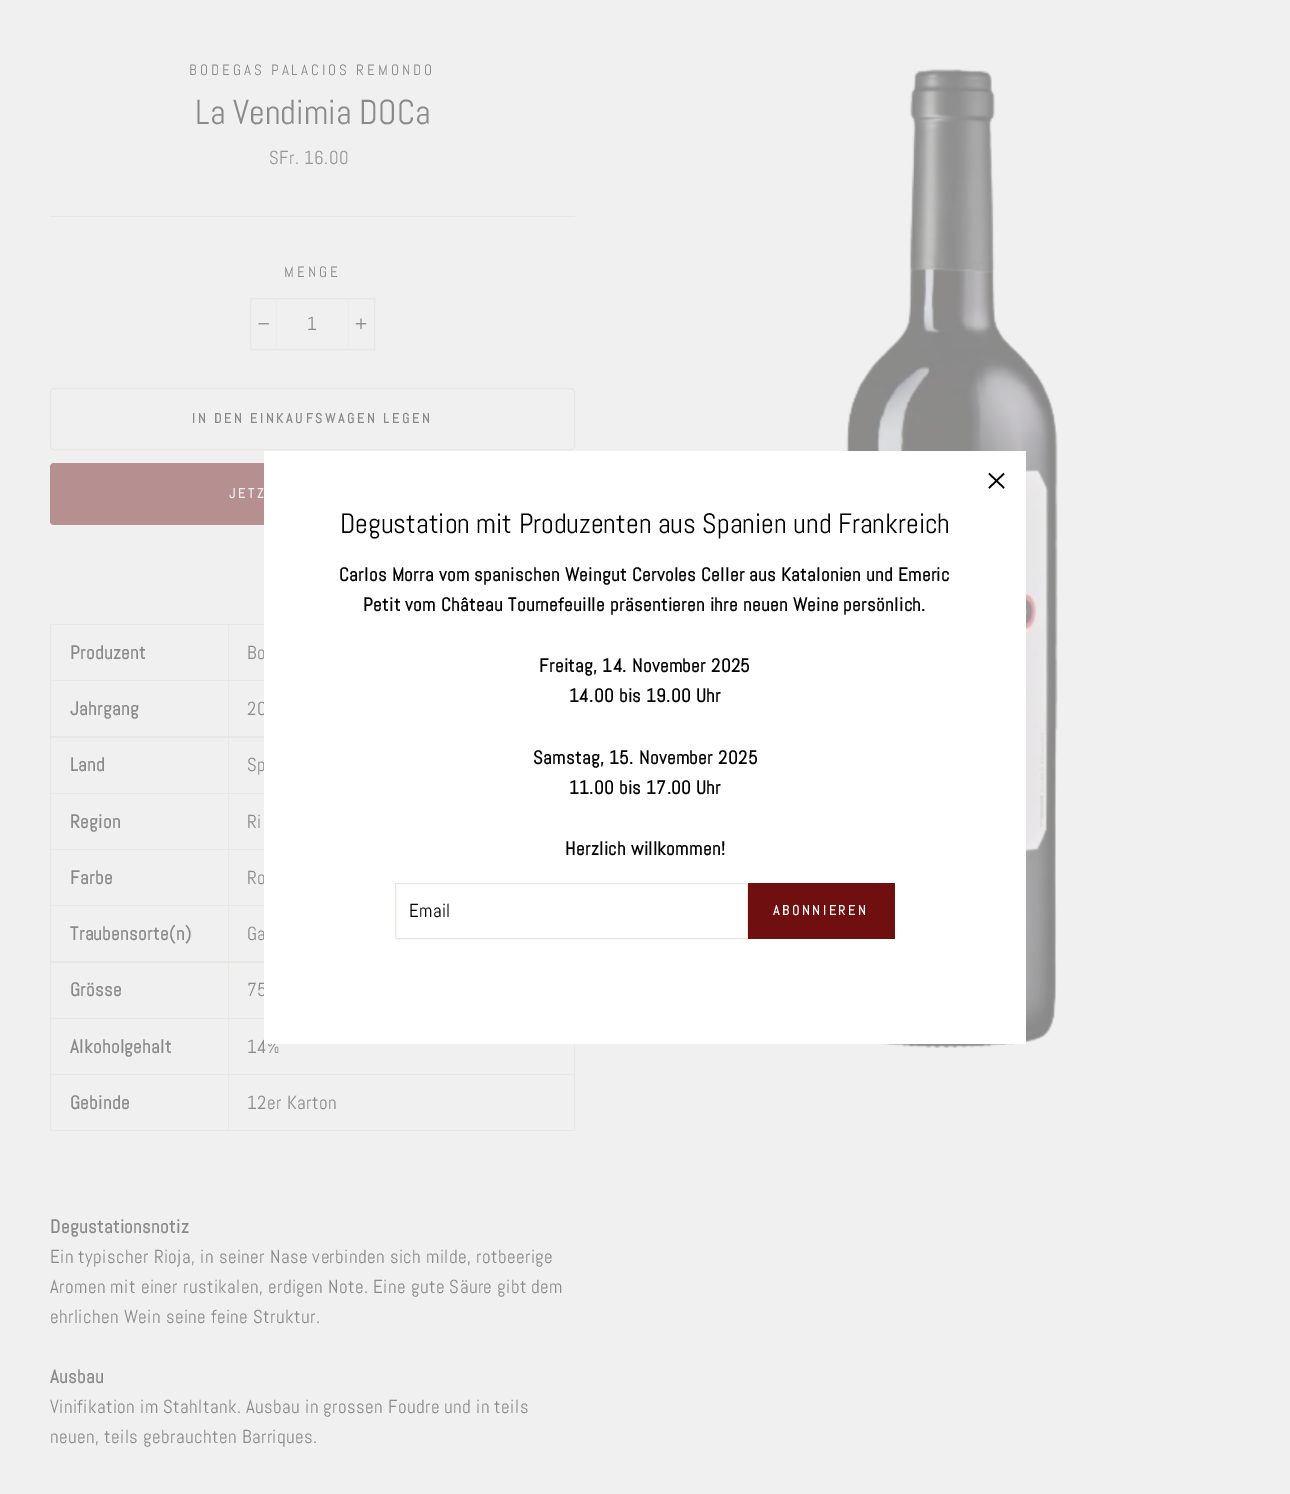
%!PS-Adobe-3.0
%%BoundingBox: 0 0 1290 1494
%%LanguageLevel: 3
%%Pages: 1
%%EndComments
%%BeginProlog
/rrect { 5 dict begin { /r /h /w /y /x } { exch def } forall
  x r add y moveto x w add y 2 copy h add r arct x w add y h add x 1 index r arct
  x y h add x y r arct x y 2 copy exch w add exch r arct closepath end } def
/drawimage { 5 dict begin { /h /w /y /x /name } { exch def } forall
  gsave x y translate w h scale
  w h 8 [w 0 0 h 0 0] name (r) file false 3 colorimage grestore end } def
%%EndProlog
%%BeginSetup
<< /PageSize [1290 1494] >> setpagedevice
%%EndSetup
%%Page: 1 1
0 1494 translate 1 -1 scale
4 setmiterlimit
0.941 setgray
0 0 1290 1494 rectfill
0.906 0.906 0.894 setrgbcolor
50 216 525 1 rectfill
250.5 298.5 124 51 rectstroke
0.922 setgray
276 299 1 50 rectfill
(images/1.raw) 258 323 12 2 drawimage
348 299 1 50 rectfill
(images/2.raw) 355 318 12 12 drawimage
0.906 0.906 0.894 setrgbcolor
50.5 388.5 524 61 3.5 rrect stroke
0.714 0.565 0.565 setrgbcolor
50 463 525 62 4 rrect fill
0.906 0.906 0.894 setrgbcolor
50 624 525 507 rectfill
0.941 setgray
51 625 177 55 rectfill
229 625 35 55 rectfill
51 681 177 55 rectfill
229 681 35 55 rectfill
51 738 177 55 rectfill
229 738 35 55 rectfill
51 794 177 55 rectfill
229 794 35 55 rectfill
51 850 177 55 rectfill
229 850 35 55 rectfill
51 906 177 55 rectfill
229 906 35 55 rectfill
51 963 177 55 rectfill
229 963 35 55 rectfill
51 1019 177 55 rectfill
229 1019 345 55 rectfill
51 1075 177 55 rectfill
229 1075 345 55 rectfill
(images/3.raw) 845 68 213 980 drawimage
/Abel-Regular [15 0 0 -15 0 0] selectfont
0.541 setgray
189 75 moveto 3 0 (BODEGAS PALACIOS REMONDO) ashow
/Abel-Regular [34.5 0 0 -34.5 0 0] selectfont
195 124 moveto (La Vendimia DOCa) show
/Abel-Regular [18.75 0 0 -18.75 0 0] selectfont
0.584 0.588 0.588 setrgbcolor
269 164 moveto 0.47 0 (SFr. 16.00) ashow
/Abel-Regular [15 0 0 -15 0 0] selectfont
0.541 setgray
284 277 moveto 3 0 (MENGE) ashow
/Abel-Regular [18.75 0 0 -18.75 0 0] selectfont
307 330 moveto 0.47 0 (1) ashow
/Abel-Bold [13.75 0 0 -13.75 0 0] selectfont
192 423 moveto 2.75 0 (IN DEN EINKAUFSWAGEN LEGEN) ashow
0.941 setgray
229 498 moveto 2.75 0 (JETZ) ashow
/Abel-Bold [18.75 0 0 -18.75 0 0] selectfont
0.541 setgray
70 659 moveto 0.47 0 (Produzent) ashow
/Abel-Regular [18.75 0 0 -18.75 0 0] selectfont
247 659 moveto 0.47 0 (Bo) ashow
/Abel-Bold [18.75 0 0 -18.75 0 0] selectfont
70 715 moveto 0.47 0 (Jahrgang) ashow
/Abel-Regular [18.75 0 0 -18.75 0 0] selectfont
247 715 moveto 0.47 0 (20) ashow
/Abel-Bold [18.75 0 0 -18.75 0 0] selectfont
70 771 moveto 0.47 0 (Land) ashow
/Abel-Regular [18.75 0 0 -18.75 0 0] selectfont
247 771 moveto 0.47 0 (Sp) ashow
/Abel-Bold [18.75 0 0 -18.75 0 0] selectfont
70 828 moveto 0.47 0 (Region) ashow
/Abel-Regular [18.75 0 0 -18.75 0 0] selectfont
247 828 moveto 0.47 0 (Ri) ashow
/Abel-Bold [18.75 0 0 -18.75 0 0] selectfont
70 884 moveto 0.47 0 (Farbe) ashow
/Abel-Regular [18.75 0 0 -18.75 0 0] selectfont
247 884 moveto 0.47 0 (Ro) ashow
/Abel-Bold [18.75 0 0 -18.75 0 0] selectfont
70 940 moveto 0.47 0 (Traubensorte\(n\)) ashow
/Abel-Regular [18.75 0 0 -18.75 0 0] selectfont
247 940 moveto 0.47 0 (Ga) ashow
/Abel-Bold [18.75 0 0 -18.75 0 0] selectfont
70 996 moveto 0.47 0 (Grösse) ashow
/Abel-Regular [18.75 0 0 -18.75 0 0] selectfont
247 996 moveto 0.47 0 (75) ashow
/Abel-Bold [18.75 0 0 -18.75 0 0] selectfont
70 1053 moveto 0.47 0 (Alkoholgehalt) ashow
/Abel-Regular [18.75 0 0 -18.75 0 0] selectfont
247 1053 moveto 0.47 0 (14%) ashow
/Abel-Bold [18.75 0 0 -18.75 0 0] selectfont
70 1109 moveto 0.47 0 (Gebinde) ashow
/Abel-Regular [18.75 0 0 -18.75 0 0] selectfont
247 1109 moveto 0.47 0 (12er Karton) ashow
/Abel-Bold [18.75 0 0 -18.75 0 0] selectfont
50 1233 moveto 0.47 0 (Degustationsnotiz) ashow
/Abel-Regular [18.75 0 0 -18.75 0 0] selectfont
50 1263 moveto 0.47 0 (Ein typischer Rioja, in seiner Nase verbinden sich milde, rotbeerige) ashow
50 1293 moveto 0.47 0 (Aromen mit einer rustikalen, erdigen Note. Eine gute Säure gibt dem) ashow
50 1323 moveto 0.47 0 (ehrlichen Wein seine feine Struktur.) ashow
/Abel-Bold [18.75 0 0 -18.75 0 0] selectfont
50 1383 moveto 0.47 0 (Ausbau) ashow
/Abel-Regular [18.75 0 0 -18.75 0 0] selectfont
50 1413 moveto 0.47 0 (Vinifikation im Stahltank. Ausbau in grossen Foudre und in teils) ashow
50 1443 moveto 0.47 0 (neuen, teils gebrauchten Barriques.) ashow
1 setgray
264 451 762 593 rectfill
0 setgray
1.6 setlinewidth
newpath 989 473.5 moveto 1004 488 lineto 1004 473.5 moveto 989 488 lineto stroke
/Abel-Regular [28 0 0 -28 0 0] selectfont
340 533 moveto (Degustation mit Produzenten aus Spanien und Frankreich) show
/Abel-Bold [18.75 0 0 -18.75 0 0] selectfont
339 581 moveto 0.47 0 (Carlos Morra vom spanischen Weingut Cervoles Celler aus Katalonien und Emeric) ashow
363 611 moveto 0.47 0 (Petit vom Château Tournefeuille präsentieren ihre neuen Weine persönlich.) ashow
539 672 moveto 0.47 0 (Freitag, 14. November 2025) ashow
569 702 moveto 0.47 0 (14.00 bis 19.00 Uhr) ashow
533 764 moveto 0.47 0 (Samstag, 15. November 2025) ashow
569 794 moveto 0.47 0 (11.00 bis 17.00 Uhr) ashow
565 855 moveto 0.47 0 (Herzlich willkommen!) ashow
0.91 0.91 0.882 setrgbcolor
1 setlinewidth
395.5 883.5 352 55 rectstroke
/Abel-Regular [18.75 0 0 -18.75 0 0] selectfont
0 setgray
409 917 moveto 0.47 0 (Email) ashow
0.435 0.059 0.059 setrgbcolor
748 883 147 56 rectfill
/Abel-Bold [13.75 0 0 -13.75 0 0] selectfont
1 setgray
773 915 moveto 2.75 0 (ABONNIEREN) ashow
showpage
%%EOF
